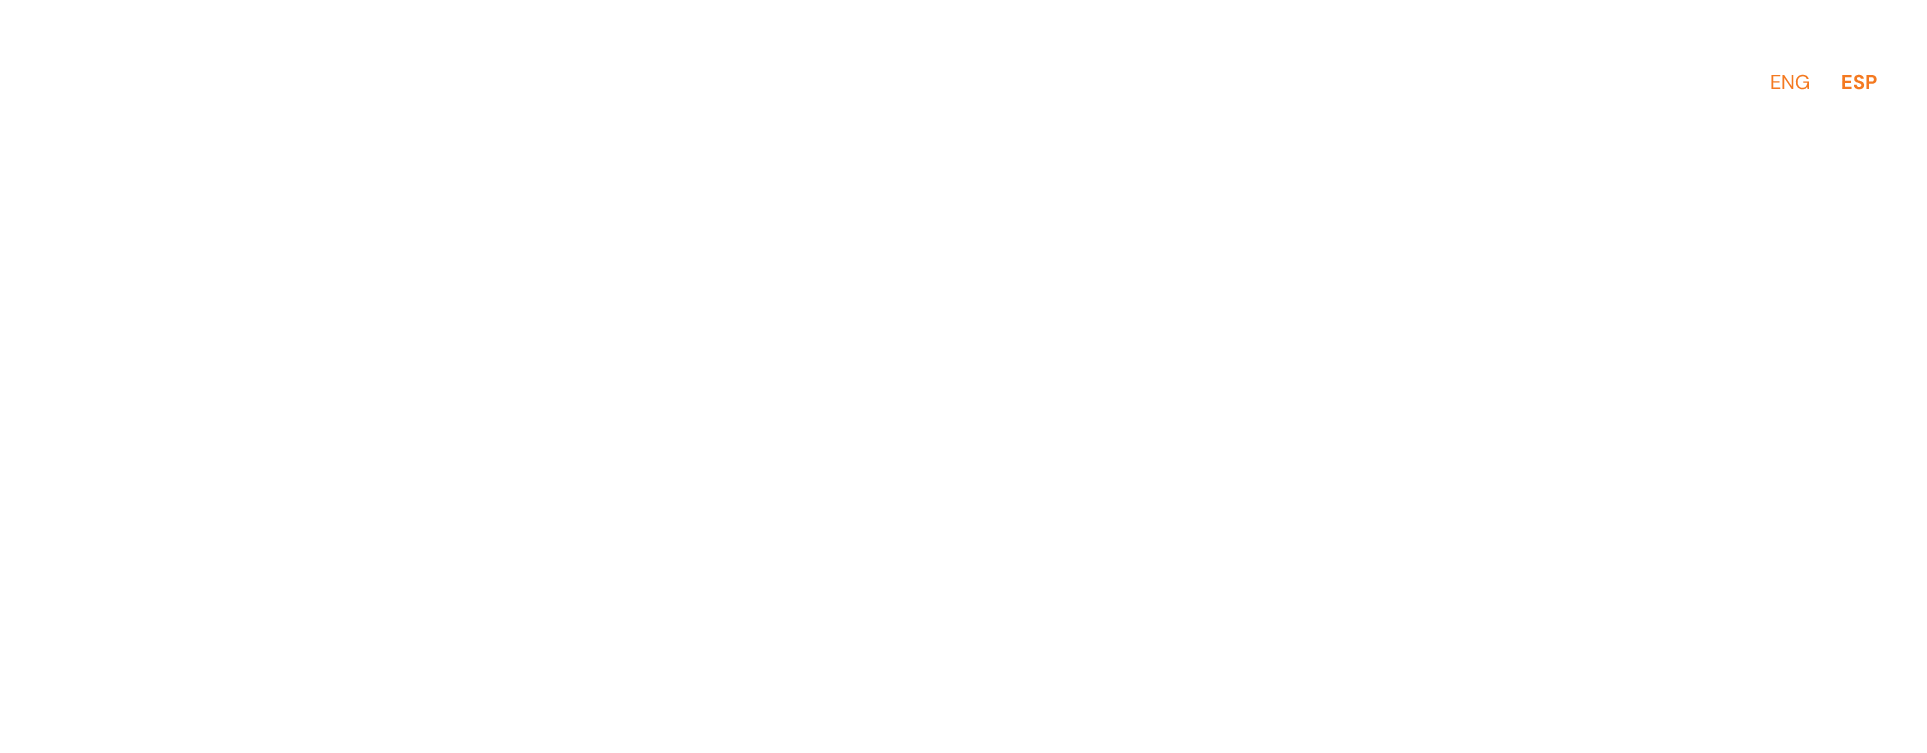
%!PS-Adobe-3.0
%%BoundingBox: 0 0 1927 753
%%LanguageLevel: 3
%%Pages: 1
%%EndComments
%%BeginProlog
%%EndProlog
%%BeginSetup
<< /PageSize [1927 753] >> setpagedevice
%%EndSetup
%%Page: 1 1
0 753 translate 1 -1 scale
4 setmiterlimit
1 setgray
0 0 1927 753 rectfill
/DMSans-Regular [20 0 0 -20 0 0] selectfont
0.957 0.475 0.125 setrgbcolor
1770 89 moveto (ENG) show
/DMSans-Bold [20 0 0 -20 0 0] selectfont
1841 89 moveto (ESP) show
showpage
%%EOF
